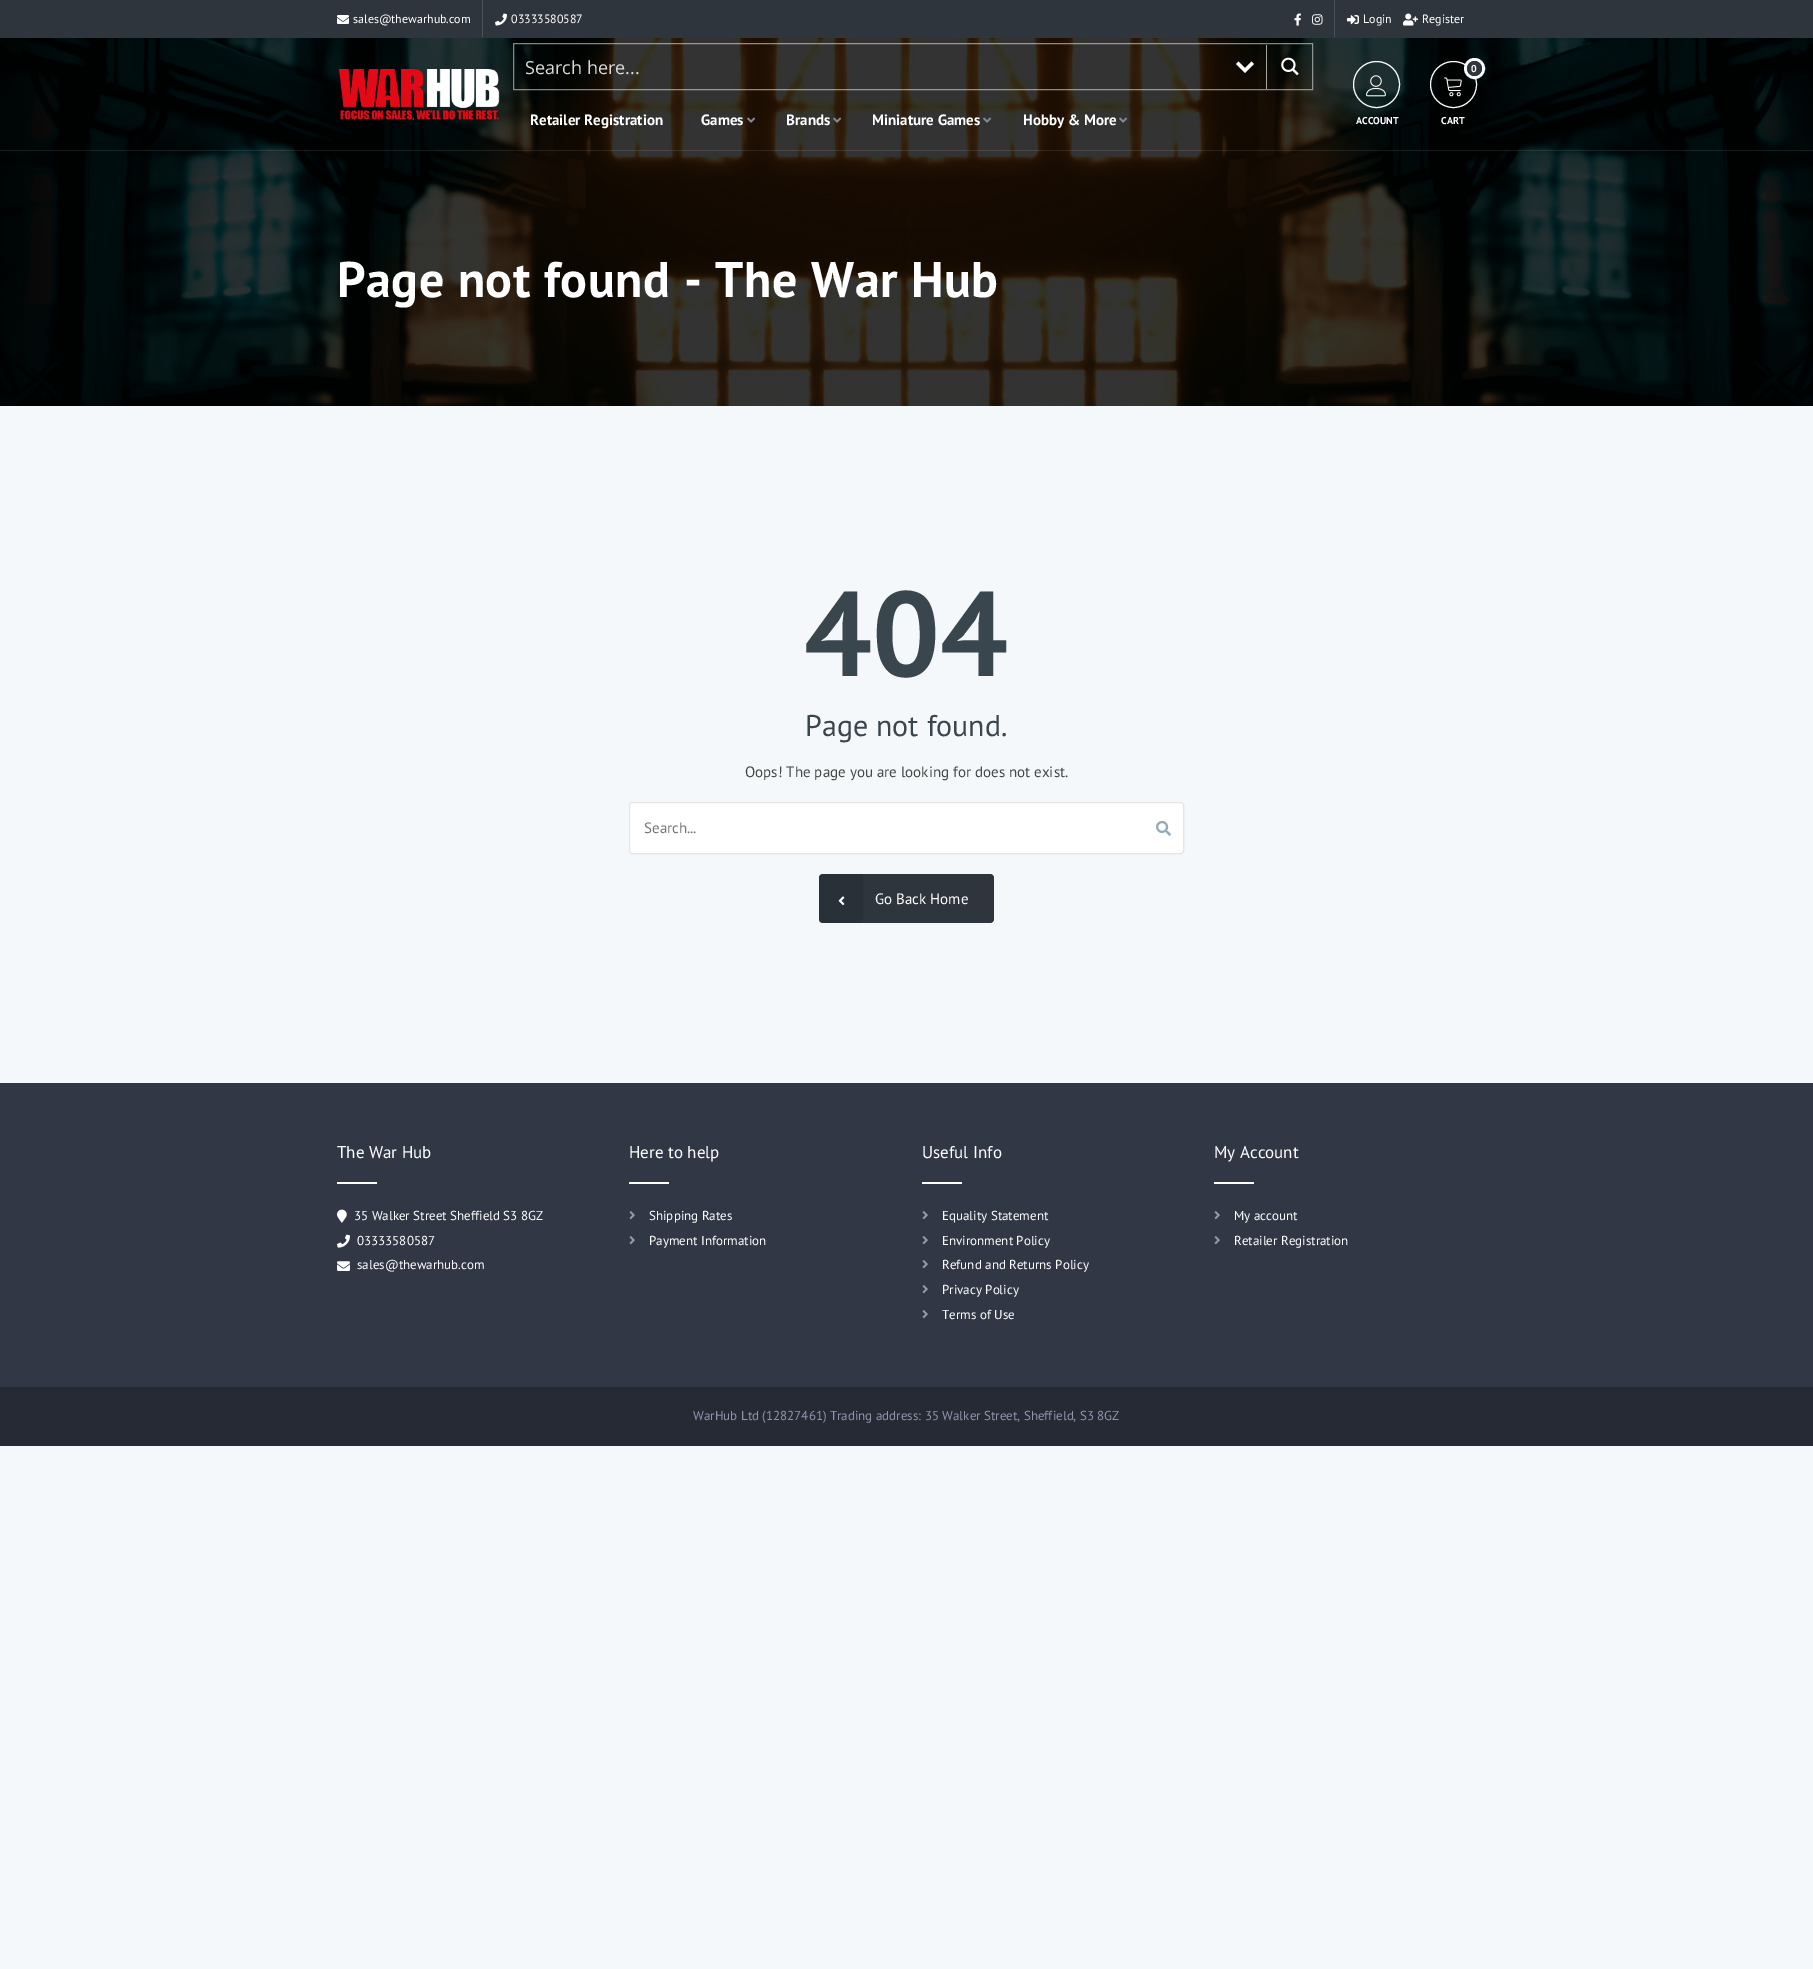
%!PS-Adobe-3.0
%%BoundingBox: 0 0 1813 1969
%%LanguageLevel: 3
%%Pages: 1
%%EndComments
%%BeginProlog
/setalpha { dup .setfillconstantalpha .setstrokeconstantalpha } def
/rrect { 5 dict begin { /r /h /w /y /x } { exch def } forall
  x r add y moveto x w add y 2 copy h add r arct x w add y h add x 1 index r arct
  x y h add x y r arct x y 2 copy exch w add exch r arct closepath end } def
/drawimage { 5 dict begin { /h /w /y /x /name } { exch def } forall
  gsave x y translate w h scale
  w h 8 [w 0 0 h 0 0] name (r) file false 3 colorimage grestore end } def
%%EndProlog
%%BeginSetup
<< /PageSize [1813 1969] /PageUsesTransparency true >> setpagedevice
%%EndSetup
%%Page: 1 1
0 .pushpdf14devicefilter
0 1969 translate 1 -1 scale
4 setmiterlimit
0.961 0.973 0.98 setrgbcolor
0 0 1813 1969 rectfill
(images/15.raw) 0 38 1813 368 drawimage
0.1 setalpha
1 setgray
0 150 1813 1 rectfill
1 setalpha
0.184 0.208 0.239 setrgbcolor
0 0 1813 38 rectfill
(images/1.raw) 337 15 12 9 drawimage
0.306 0.325 0.353 setrgbcolor
482 0 1 37 rectfill
(images/2.raw) 495 13 12 13 drawimage
(images/3.raw) 1294 13 7 13 drawimage
(images/4.raw) 1312 14 11 11 drawimage
1334 0 1 37 rectfill
(images/5.raw) 1347 15 12 10 drawimage
(images/6.raw) 1403 13 15 13 drawimage
(images/7.raw) 338 69 162 52 drawimage
0.5 setalpha
1 setgray
513.5 43.5 799 46 rectstroke
1 setalpha
newpath 1251.5 61.5 moveto 1254 64 lineto 1245 73 lineto 1236 64 lineto 1238.5 61.5 lineto 1245 68 lineto closepath fill
gsave
514 44 798 45 rectclip
0.64 setalpha
newpath 1266 45 moveto 1266 90 lineto 1311 90 lineto 1311 89 lineto 1267 89 lineto 1267 45 lineto closepath fill
grestore
(images/8.raw) 1281 57 18 19 drawimage
(images/9.raw) 747 117 9 6 drawimage
(images/10.raw) 833 117 9 6 drawimage
(images/11.raw) 983 117 9 6 drawimage
(images/12.raw) 1119 117 9 6 drawimage
newpath 1376.5 84.5 23 0 360 arc closepath stroke
(images/13.raw) 1366 75 20 22 drawimage
newpath 1453.5 84.5 23 0 360 arc closepath stroke
(images/14.raw) 1444 77 18 20 drawimage
3 setlinewidth
newpath 1474.5 68.5 9 0 360 arc closepath stroke
0.184 0.208 0.239 setrgbcolor
newpath 1474.5 68.5 7.5 0 360 arc closepath fill
1 setgray
629 802 555 52 3 rrect fill
0.1 setalpha
0 setgray
1 setlinewidth
629.5 802.5 554 51 2.5 rrect stroke
1 setalpha
(images/16.raw) 1156 820 15 16 drawimage
0.184 0.208 0.239 setrgbcolor
819 874 175 49 4 rrect fill
0.1 setalpha
0 setgray
819 874 44 49 2 rrect fill
1 setalpha
(images/17.raw) 838 896 7 10 drawimage
0.196 0.216 0.275 setrgbcolor
0 1083 1813 304 rectfill
1 setgray
337 1182 40 2 rectfill
(images/18.raw) 337 1209 10 14 drawimage
(images/19.raw) 337 1234 13 14 drawimage
(images/20.raw) 337 1261 13 10 drawimage
629 1182 40 2 rectfill
(images/21.raw) 629 1211 6 9 drawimage
(images/21.raw) 629 1236 6 9 drawimage
922 1182 40 2 rectfill
(images/21.raw) 922 1211 6 9 drawimage
(images/21.raw) 922 1236 6 9 drawimage
(images/21.raw) 922 1260 6 9 drawimage
(images/21.raw) 922 1285 6 9 drawimage
(images/21.raw) 922 1310 6 9 drawimage
1214 1182 40 2 rectfill
(images/21.raw) 1214 1211 6 9 drawimage
(images/21.raw) 1214 1236 6 9 drawimage
0.149 0.165 0.208 setrgbcolor
0 1387 1813 59 rectfill
/PTSans-Regular [12 0 0 -12 0 0] selectfont
1 setgray
353 23 moveto (sales@thewarhub.com) show
511 23 moveto (03333580587) show
1363 23 moveto (Login) show
1422 23 moveto (Register) show
/OpenSans-Regular [18 0 0 -18 0 0] selectfont
0.859 0.859 0.855 setrgbcolor
525 74 moveto (Search here...) show
/PTSans-Bold [15 0 0 -15 0 0] selectfont
1 setgray
530 125 moveto (Retailer Registration) show
701 125 moveto (Games) show
786 125 moveto (Brands) show
872 125 moveto (Miniature Games) show
1023 125 moveto (Hobby & More) show
/PTSans-Bold [10 0 0 -10 0 0] selectfont
1356 124 moveto (ACCOUNT) show
1471 72 moveto (0) show
1441 124 moveto (CART) show
/PTSans-Bold [50 0 0 -50 0 0] selectfont
337 297 moveto 0.5 0 (Page not found - The War Hub) ashow
/PTSans-Bold [120 0 0 -120 0 0] selectfont
0.227 0.275 0.306 setrgbcolor
804 676 moveto (404) show
/PTSans-Regular [30 0 0 -30 0 0] selectfont
805 736 moveto (Page not found.) show
/PTSans-Regular [15 0 0 -15 0 0] selectfont
0.275 setgray
745 777 moveto (Oops! The page you are looking for does not exist.) show
0.459 setgray
644 833 moveto (Search...) show
1 setgray
875 904 moveto (Go Back Home) show
/PTSans-Regular [17 0 0 -17 0 0] selectfont
337 1158 moveto (The War Hub) show
/PTSans-Regular [13 0 0 -13 0 0] selectfont
354 1220 moveto (35 Walker Street Sheffield S3 8GZ) show
357 1245 moveto (03333580587) show
357 1269 moveto (sales@thewarhub.com) show
/PTSans-Regular [17 0 0 -17 0 0] selectfont
629 1158 moveto (Here to help) show
/PTSans-Regular [13 0 0 -13 0 0] selectfont
649 1220 moveto (Shipping Rates) show
649 1245 moveto (Payment Information) show
/PTSans-Regular [17 0 0 -17 0 0] selectfont
922 1158 moveto (Useful Info) show
/PTSans-Regular [13 0 0 -13 0 0] selectfont
942 1220 moveto (Equality Statement) show
942 1245 moveto (Environment Policy) show
942 1269 moveto (Refund and Returns Policy) show
942 1294 moveto (Privacy Policy) show
942 1319 moveto (Terms of Use) show
/PTSans-Regular [17 0 0 -17 0 0] selectfont
1214 1158 moveto (My Account) show
/PTSans-Regular [13 0 0 -13 0 0] selectfont
1234 1220 moveto (My account) show
1234 1245 moveto (Retailer Registration) show
0.557 0.584 0.675 setrgbcolor
693 1420 moveto (WarHub Ltd \(12827461\) Trading address: 35 Walker Street, Sheffield, S3 8GZ) show
.poppdf14devicefilter showpage
%%EOF
